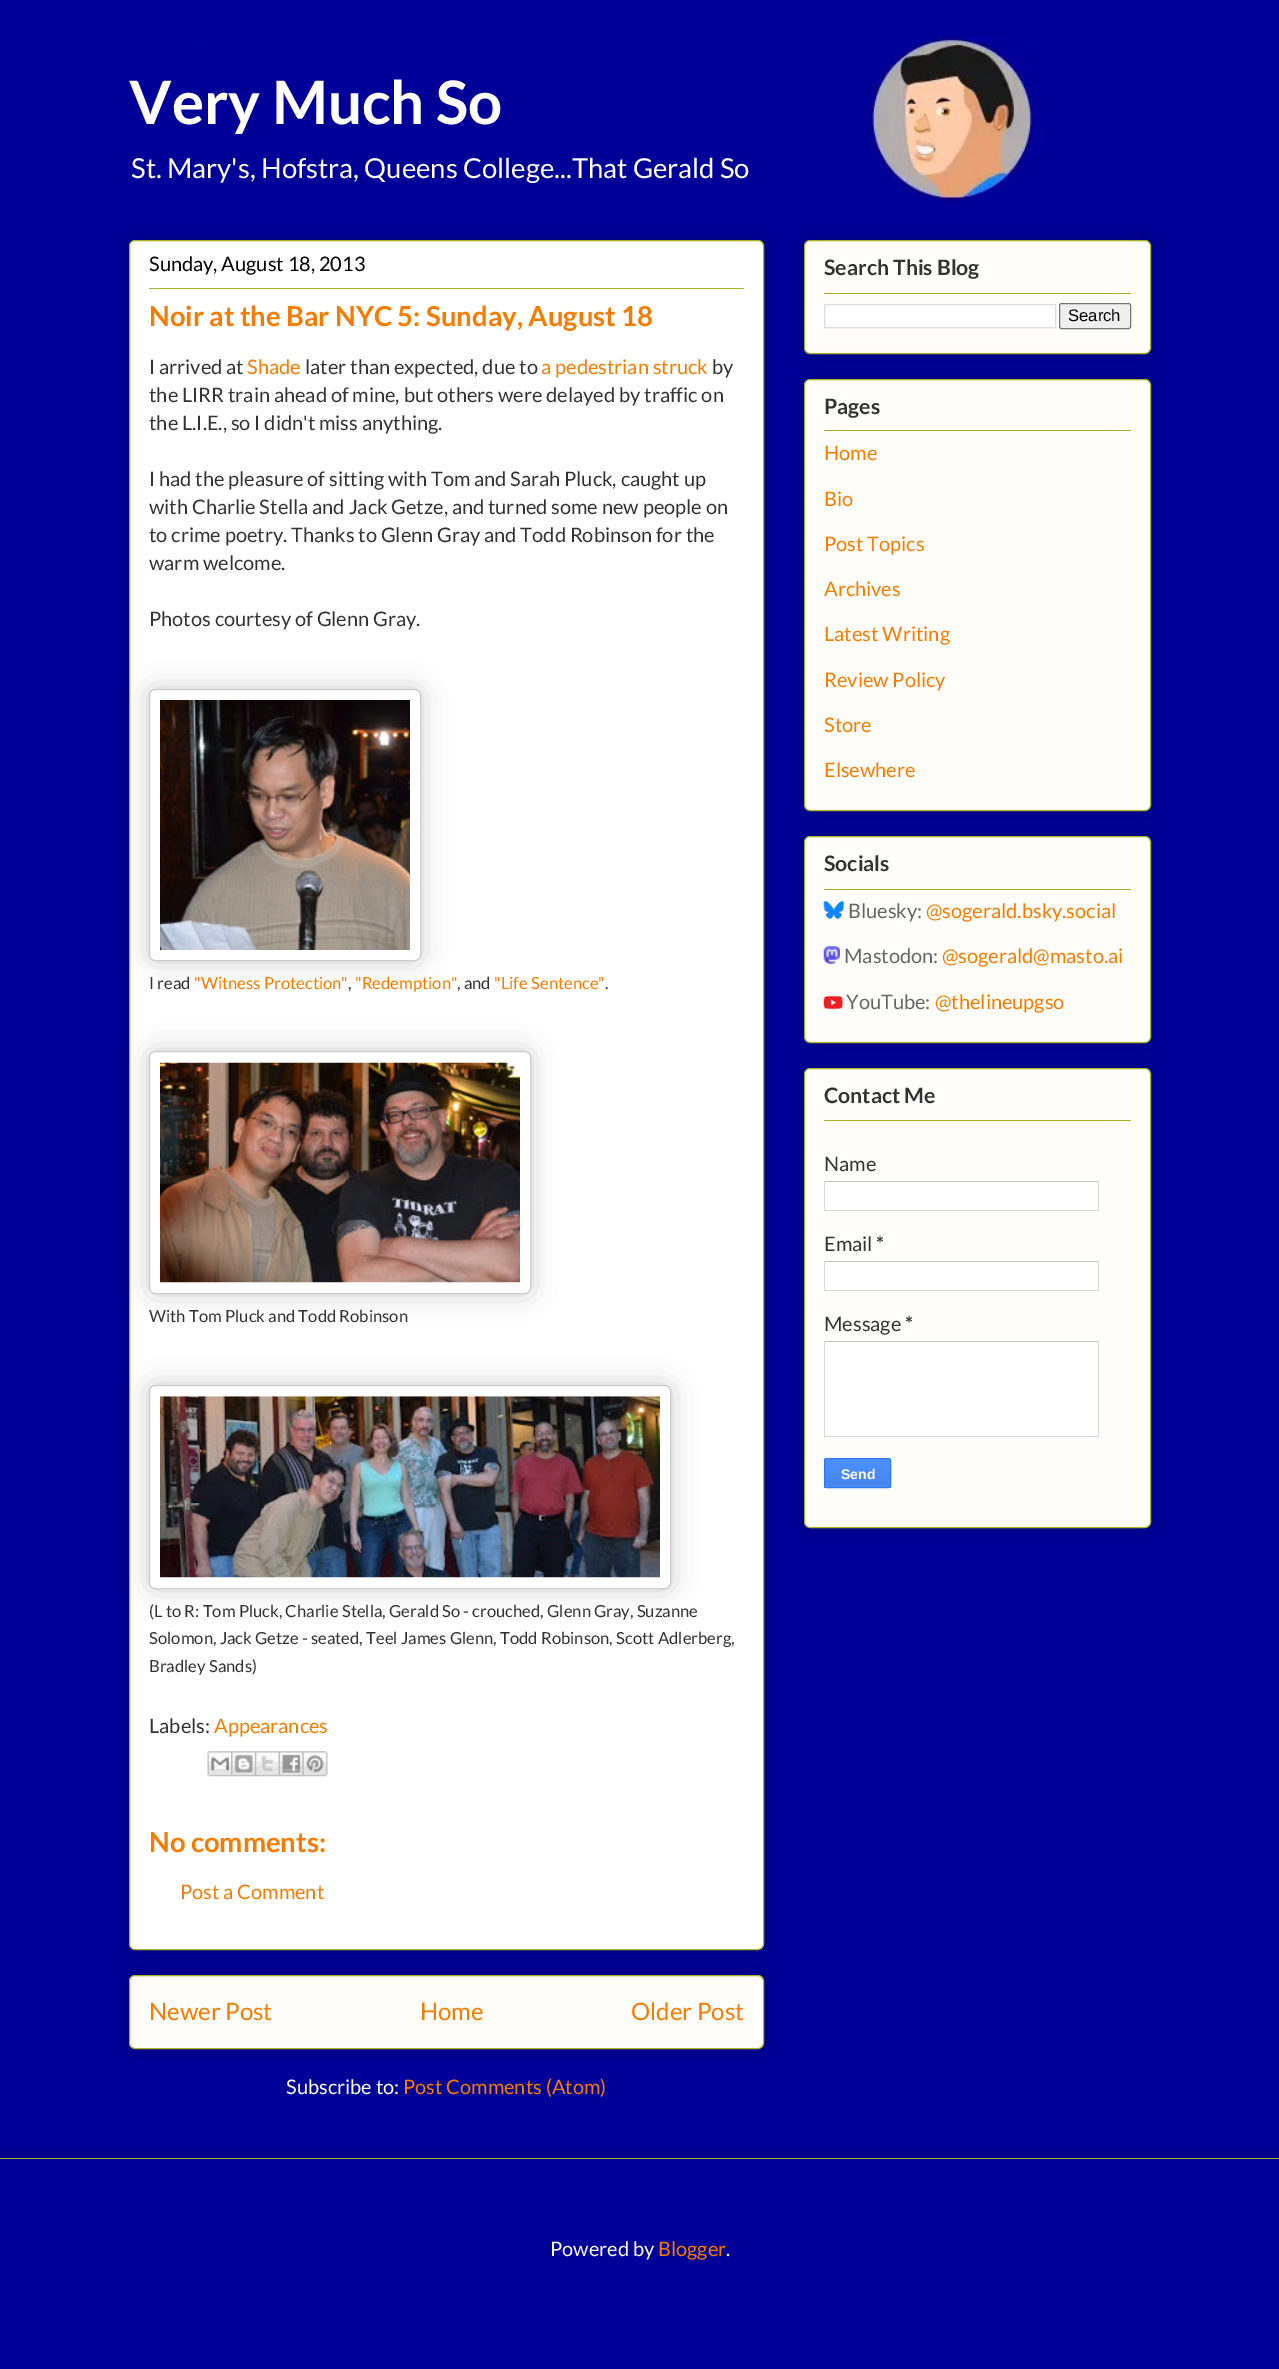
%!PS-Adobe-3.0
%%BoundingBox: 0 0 1279 2369
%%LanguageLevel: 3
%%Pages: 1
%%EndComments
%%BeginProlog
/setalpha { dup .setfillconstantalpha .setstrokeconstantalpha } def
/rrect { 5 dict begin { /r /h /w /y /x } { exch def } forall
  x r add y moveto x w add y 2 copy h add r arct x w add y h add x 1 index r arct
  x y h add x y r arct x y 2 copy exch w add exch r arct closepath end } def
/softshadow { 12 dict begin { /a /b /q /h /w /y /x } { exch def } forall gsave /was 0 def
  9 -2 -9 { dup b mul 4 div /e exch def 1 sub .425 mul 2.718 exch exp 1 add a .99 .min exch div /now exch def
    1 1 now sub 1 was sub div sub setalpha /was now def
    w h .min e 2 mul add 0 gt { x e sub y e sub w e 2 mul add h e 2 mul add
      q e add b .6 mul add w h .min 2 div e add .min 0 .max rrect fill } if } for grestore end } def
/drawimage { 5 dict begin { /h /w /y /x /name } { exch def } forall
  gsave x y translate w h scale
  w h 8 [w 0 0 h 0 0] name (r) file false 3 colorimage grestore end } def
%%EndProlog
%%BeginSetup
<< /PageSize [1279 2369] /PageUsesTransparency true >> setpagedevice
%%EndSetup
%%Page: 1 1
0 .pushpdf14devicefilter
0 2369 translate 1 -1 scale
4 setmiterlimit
0 0 0.6 setrgbcolor
0 0 1279 2369 rectfill
(images/1.raw) 164 37 883 165 drawimage
0 setgray
129 1975 635 74 6 12.5 0.2 softshadow
0.996 0.992 0.98 setrgbcolor
129.5 1975.5 634 73 5.5 rrect gsave fill grestore
0.667 0.694 0.137 setrgbcolor
stroke
0 setgray
129 240 635 1710 6 12.5 0.2 softshadow
1 setgray
129.5 240.5 634 1709 5.5 rrect gsave fill grestore
0.667 0.694 0.137 setrgbcolor
stroke
149 288 595 1 rectfill
0 setgray
149 689 272 272 6 12.5 0.2 softshadow
1 setgray
149.5 689.5 271 271 5.5 rrect gsave fill grestore
0.8 setgray
stroke
(images/2.raw) 160 700 250 250 drawimage
0 setgray
149 1051 382 243 6 12.5 0.2 softshadow
1 setgray
149.5 1051.5 381 242 5.5 rrect gsave fill grestore
0.8 setgray
stroke
(images/3.raw) 160 1062 360 221 drawimage
0 setgray
149 1385 522 204 6 12.5 0.2 softshadow
1 setgray
149.5 1385.5 521 203 5.5 rrect gsave fill grestore
0.8 setgray
stroke
(images/4.raw) 160 1396 500 182 drawimage
(images/5.raw) 207 1751 26 26 drawimage
(images/6.raw) 231 1751 26 26 drawimage
(images/7.raw) 255 1751 25 26 drawimage
(images/8.raw) 278 1751 26 26 drawimage
(images/9.raw) 302 1751 26 26 drawimage
0 setgray
804 240 347 114 6 12.5 0.2 softshadow
0.996 0.992 0.98 setrgbcolor
804.5 240.5 346 113 5.5 rrect gsave fill grestore
0.667 0.694 0.137 setrgbcolor
stroke
824 293 307 1 rectfill
1 setgray
newpath 824.5 304.5 moveto 1055.5 304.5 lineto 1055.5 327.5 lineto 824.5 327.5 lineto closepath gsave fill grestore
0.867 setgray
stroke
0.937 setgray
1059.5 303.5 71 25 2 rrect gsave fill grestore
0.463 setgray
stroke
0 setgray
804 379 347 432 6 12.5 0.2 softshadow
0.996 0.992 0.98 setrgbcolor
804.5 379.5 346 431 5.5 rrect gsave fill grestore
0.667 0.694 0.137 setrgbcolor
stroke
824 430 307 1 rectfill
0 setgray
804 836 347 207 6 12.5 0.2 softshadow
0.996 0.992 0.98 setrgbcolor
804.5 836.5 346 206 5.5 rrect gsave fill grestore
0.667 0.694 0.137 setrgbcolor
stroke
824 889 307 1 rectfill
(images/10.raw) 823 901 21 18 drawimage
(images/11.raw) 823 946 17 18 drawimage
(images/12.raw) 823 996 20 13 drawimage
0 setgray
804 1068 347 460 6 12.5 0.2 softshadow
0.996 0.992 0.98 setrgbcolor
804.5 1068.5 346 459 5.5 rrect gsave fill grestore
0.667 0.694 0.137 setrgbcolor
stroke
824 1120 307 1 rectfill
1 setgray
825 1182 273 28 rectfill
0.753 setgray
824 1181 275 1 rectfill
0.851 setgray
1098 1181 1 30 rectfill
824 1210 275 1 rectfill
824 1181 1 30 rectfill
1 setgray
825 1262 273 28 rectfill
0.753 setgray
824 1261 275 1 rectfill
0.851 setgray
1098 1261 1 30 rectfill
824 1290 275 1 rectfill
824 1261 1 30 rectfill
1 setgray
825 1342 273 96 rectfill
0.753 setgray
824 1341 275 1 rectfill
0.851 setgray
1098 1341 1 97 rectfill
824 1436 275 1 rectfill
824 1341 1 97 rectfill
gsave newpath 824 1459 moveto 891 1459 lineto 891 1486 lineto 824 1486 lineto closepath clip newpath
<< /ShadingType 2 /ColorSpace /DeviceRGB /Coords [858 1459 858 1486] /Extend [true true] /Function << /FunctionType 2 /Domain [0 1] /C0 [0.302 0.565 0.996] /C1 [0.278 0.529 0.929] /N 1 >> >> shfill grestore
gsave
824 1458 67 30 2.5 rrect clip newpath
gsave newpath 824 1486 moveto 891 1486 lineto 891 1488 lineto 824 1488 lineto closepath clip newpath
<< /ShadingType 2 /ColorSpace /DeviceRGB /Coords [858 1486 858 1514] /Extend [true true] /Function << /FunctionType 2 /Domain [0 1] /C0 [0.302 0.565 0.996] /C1 [0.278 0.529 0.929] /N 1 >> >> shfill grestore
grestore
0.188 0.475 0.929 setrgbcolor
824.5 1458.5 66 29 2 rrect stroke
gsave
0 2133 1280 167 rectclip
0 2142 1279 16 rectclip
0 setgray
-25 2158 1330 142 0 12.5 0.2 softshadow
grestore
0.667 0.694 0.137 setrgbcolor
0 2158 1279 1 rectfill
/Lato-Bold [60 0 0 -60 0 0] selectfont
1 setgray
129 124 moveto (Very Much So) show
/Lato-Regular [27.5 0 0 -27.5 0 0] selectfont
131 178 moveto (St. Mary's, Hofstra, Queens College...That Gerald So) show
/Lato-Regular [20 0 0 -20 0 0] selectfont
0 setgray
149 271 moveto (Sunday, August 18, 2013) show
/Lato-Bold [27.5 0 0 -27.5 0 0] selectfont
0.961 0.486 0 setrgbcolor
149 326 moveto (Noir at the Bar NYC 5: Sunday, August 18) show
/Lato-Regular [20 0 0 -20 0 0] selectfont
0.2 setgray
149 374 moveto (I arrived at) show
0.961 0.486 0 setrgbcolor
247 374 moveto (Shade) show
0.2 setgray
305 374 moveto (later than expected, due to) show
0.961 0.486 0 setrgbcolor
541 374 moveto (a pedestrian struck) show
0.2 setgray
712 374 moveto (by) show
149 402 moveto (the LIRR train ahead of mine, but others were delayed by traffic on) show
149 430 moveto (the L.I.E., so I didn't miss anything.) show
149 486 moveto (I had the pleasure of sitting with Tom and Sarah Pluck, caught up) show
149 514 moveto (with Charlie Stella and Jack Getze, and turned some new people on) show
149 542 moveto (to crime poetry. Thanks to Glenn Gray and Todd Robinson for the) show
149 570 moveto (warm welcome.) show
149 626 moveto (Photos courtesy of Glenn Gray.) show
/Lato-Regular [16.65 0 0 -16.65 0 0] selectfont
149 989 moveto (I read) show
0.961 0.486 0 setrgbcolor
194 989 moveto ("Witness Protection") show
0.2 setgray
348 989 moveto (,) show
0.961 0.486 0 setrgbcolor
355 989 moveto ("Redemption") show
0.2 setgray
457 989 moveto (, and) show
0.961 0.486 0 setrgbcolor
494 989 moveto ("Life Sentence") show
0.2 setgray
605 989 moveto (.) show
149 1322 moveto (With Tom Pluck and Todd Robinson) show
149 1617 moveto (\(L to R: Tom Pluck, Charlie Stella, Gerald So - crouched, Glenn Gray, Suzanne) show
149 1644 moveto (Solomon, Jack Getze - seated, Teel James Glenn, Todd Robinson, Scott Adlerberg,) show
149 1672 moveto (Bradley Sands\)) show
/Lato-Regular [20 0 0 -20 0 0] selectfont
149 1733 moveto (Labels:) show
0.961 0.486 0 setrgbcolor
214 1733 moveto (Appearances) show
/Lato-Bold [27.5 0 0 -27.5 0 0] selectfont
149 1852 moveto (No comments:) show
/Lato-Regular [20 0 0 -20 0 0] selectfont
180 1899 moveto (Post a Comment) show
/Lato-Regular [24 0 0 -24 0 0] selectfont
149 2020 moveto (Newer Post) show
420 2020 moveto (Home) show
631 2020 moveto (Older Post) show
/Lato-Regular [20 0 0 -20 0 0] selectfont
1 setgray
286 2094 moveto (Subscribe to:) show
0.961 0.486 0 setrgbcolor
403 2094 moveto (Post Comments \(Atom\)) show
/Lato-Bold [21.25 0 0 -21.25 0 0] selectfont
0.2 setgray
824 275 moveto (Search This Blog) show
/LiberationSans-Regular [16.65 0 0 -16.65 0 0] selectfont
0 setgray
1068 321 moveto (Search) show
/Lato-Bold [21.25 0 0 -21.25 0 0] selectfont
0.2 setgray
824 414 moveto (Pages) show
/Lato-Regular [20 0 0 -20 0 0] selectfont
0.961 0.486 0 setrgbcolor
824 460 moveto (Home) show
824 506 moveto (Bio) show
824 551 moveto (Post Topics) show
824 596 moveto (Archives) show
824 641 moveto (Latest Writing) show
824 687 moveto (Review Policy) show
824 732 moveto (Store) show
824 777 moveto (Elsewhere) show
/Lato-Bold [21.25 0 0 -21.25 0 0] selectfont
0.2 setgray
824 871 moveto (Socials) show
/Lato-Regular [20 0 0 -20 0 0] selectfont
0.4 setgray
848 918 moveto (Bluesky:) show
0.961 0.486 0 setrgbcolor
926 918 moveto (@sogerald.bsky.social) show
0.4 setgray
844 963 moveto (Mastodon:) show
0.961 0.486 0 setrgbcolor
942 963 moveto (@sogerald@masto.ai) show
0.4 setgray
846 1009 moveto (YouTube:) show
0.961 0.486 0 setrgbcolor
935 1009 moveto (@thelineupgso) show
/Lato-Bold [21.25 0 0 -21.25 0 0] selectfont
0.2 setgray
824 1103 moveto (Contact Me) show
/Lato-Regular [20 0 0 -20 0 0] selectfont
824 1171 moveto (Name) show
824 1251 moveto (Email) show
/Lato-Bold [20 0 0 -20 0 0] selectfont
876 1251 moveto (*) show
/Lato-Regular [20 0 0 -20 0 0] selectfont
824 1331 moveto (Message) show
/Lato-Bold [20 0 0 -20 0 0] selectfont
905 1331 moveto (*) show
/LiberationSans-Bold [14 0 0 -14 0 0] selectfont
1 setgray
841 1479 moveto (Send) show
/Lato-Regular [20 0 0 -20 0 0] selectfont
0.988 0.988 0.976 setrgbcolor
550 2256 moveto (Powered by) show
0.961 0.486 0 setrgbcolor
658 2256 moveto (Blogger) show
0.988 0.988 0.976 setrgbcolor
726 2256 moveto (.) show
.poppdf14devicefilter showpage
%%EOF
